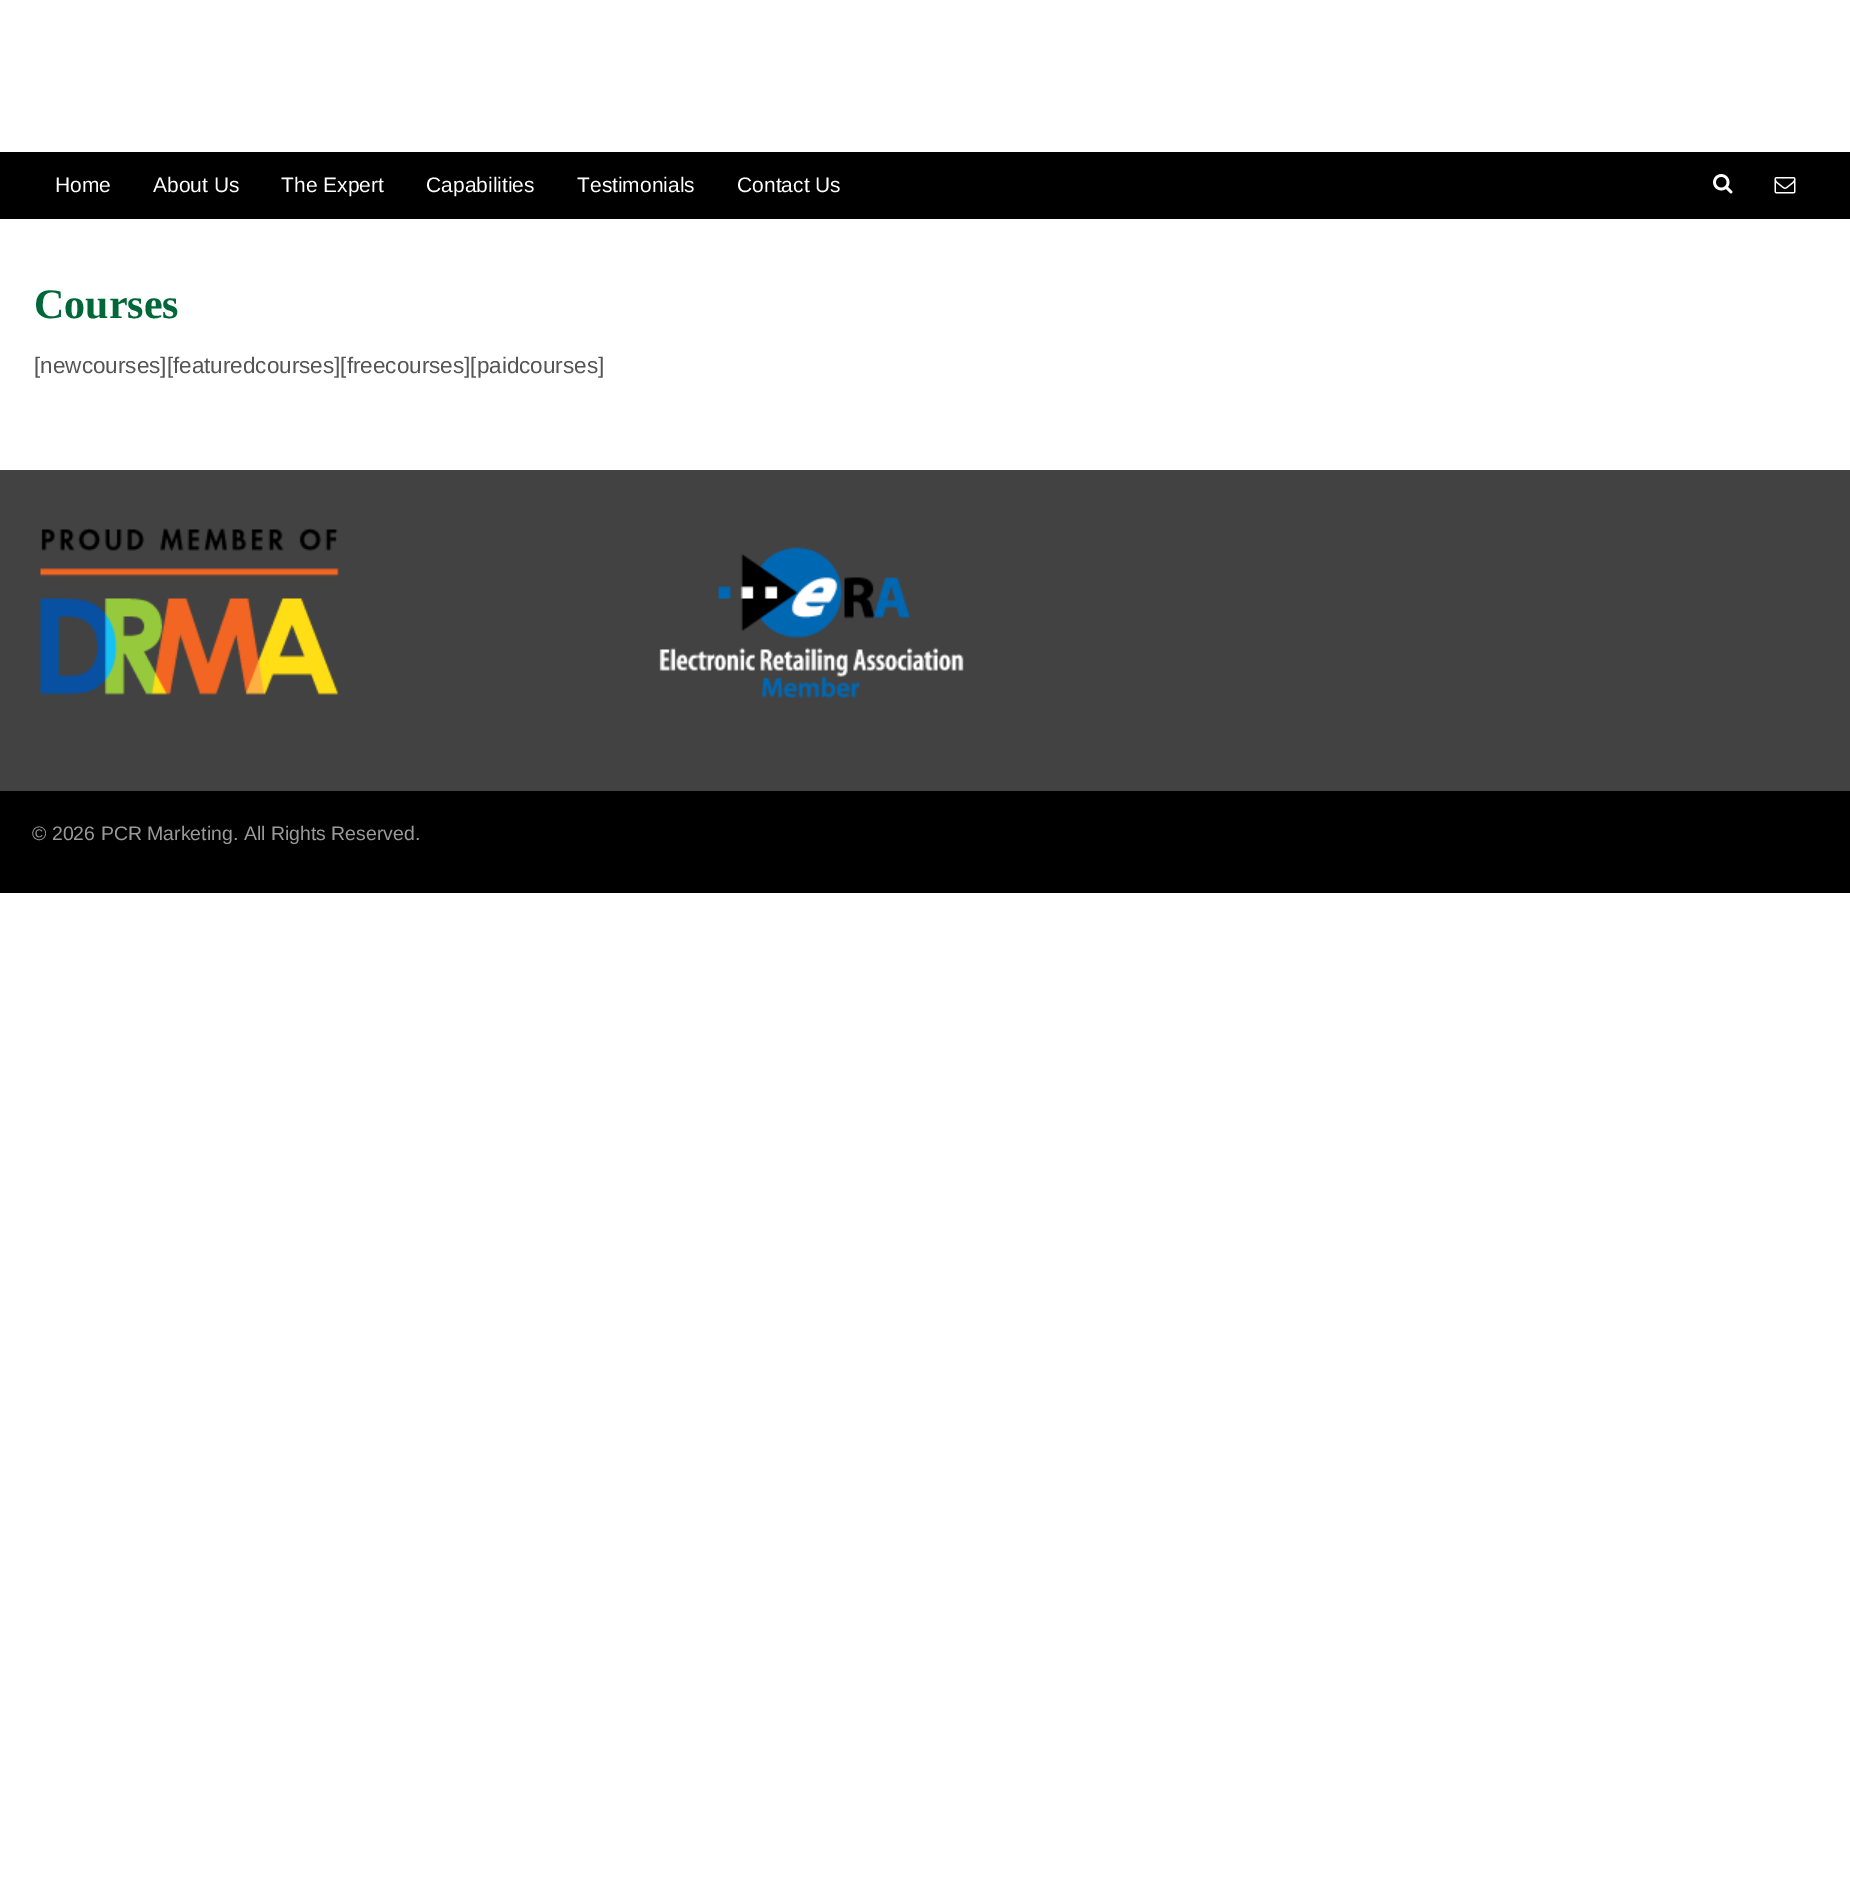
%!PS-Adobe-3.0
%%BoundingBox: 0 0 1850 1882
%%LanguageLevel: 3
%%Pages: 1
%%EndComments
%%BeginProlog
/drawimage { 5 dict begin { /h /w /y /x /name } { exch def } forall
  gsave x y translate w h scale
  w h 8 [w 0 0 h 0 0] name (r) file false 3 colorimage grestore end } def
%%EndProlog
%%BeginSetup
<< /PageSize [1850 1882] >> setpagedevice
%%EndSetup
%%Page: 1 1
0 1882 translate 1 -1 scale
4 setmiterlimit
1 setgray
0 0 1850 1882 rectfill
0 setgray
0 152 1850 67 rectfill
(images/1.raw) 1713 174 20 20 drawimage
(images/2.raw) 1774 177 22 17 drawimage
0.259 setgray
0 470 1850 321 rectfill
(images/3.raw) 40 528 300 167 drawimage
(images/4.raw) 659 547 305 151 drawimage
0 setgray
0 791 1850 102 rectfill
/LiberationSans-Regular [21 0 0 -21 0 0] selectfont
1 setgray
55 192 moveto (Home) show
153 192 moveto (About Us) show
281 192 moveto (The Expert) show
426 192 moveto (Capabilities) show
577 192 moveto (Testimonials) show
737 192 moveto (Contact Us) show
/LiberationSerif-Bold [42 0 0 -42 0 0] selectfont
0 0.404 0.22 setrgbcolor
34 318 moveto (Courses) show
/LiberationSans-Regular [22.5 0 0 -22.5 0 0] selectfont
0.333 setgray
34 373 moveto ([newcourses][featuredcourses][freecourses][paidcourses]) show
/LiberationSans-Regular [19.5 0 0 -19.5 0 0] selectfont
0.6 setgray
32 840 moveto (© 2026 PCR Marketing. All Rights Reserved.) show
showpage
%%EOF
